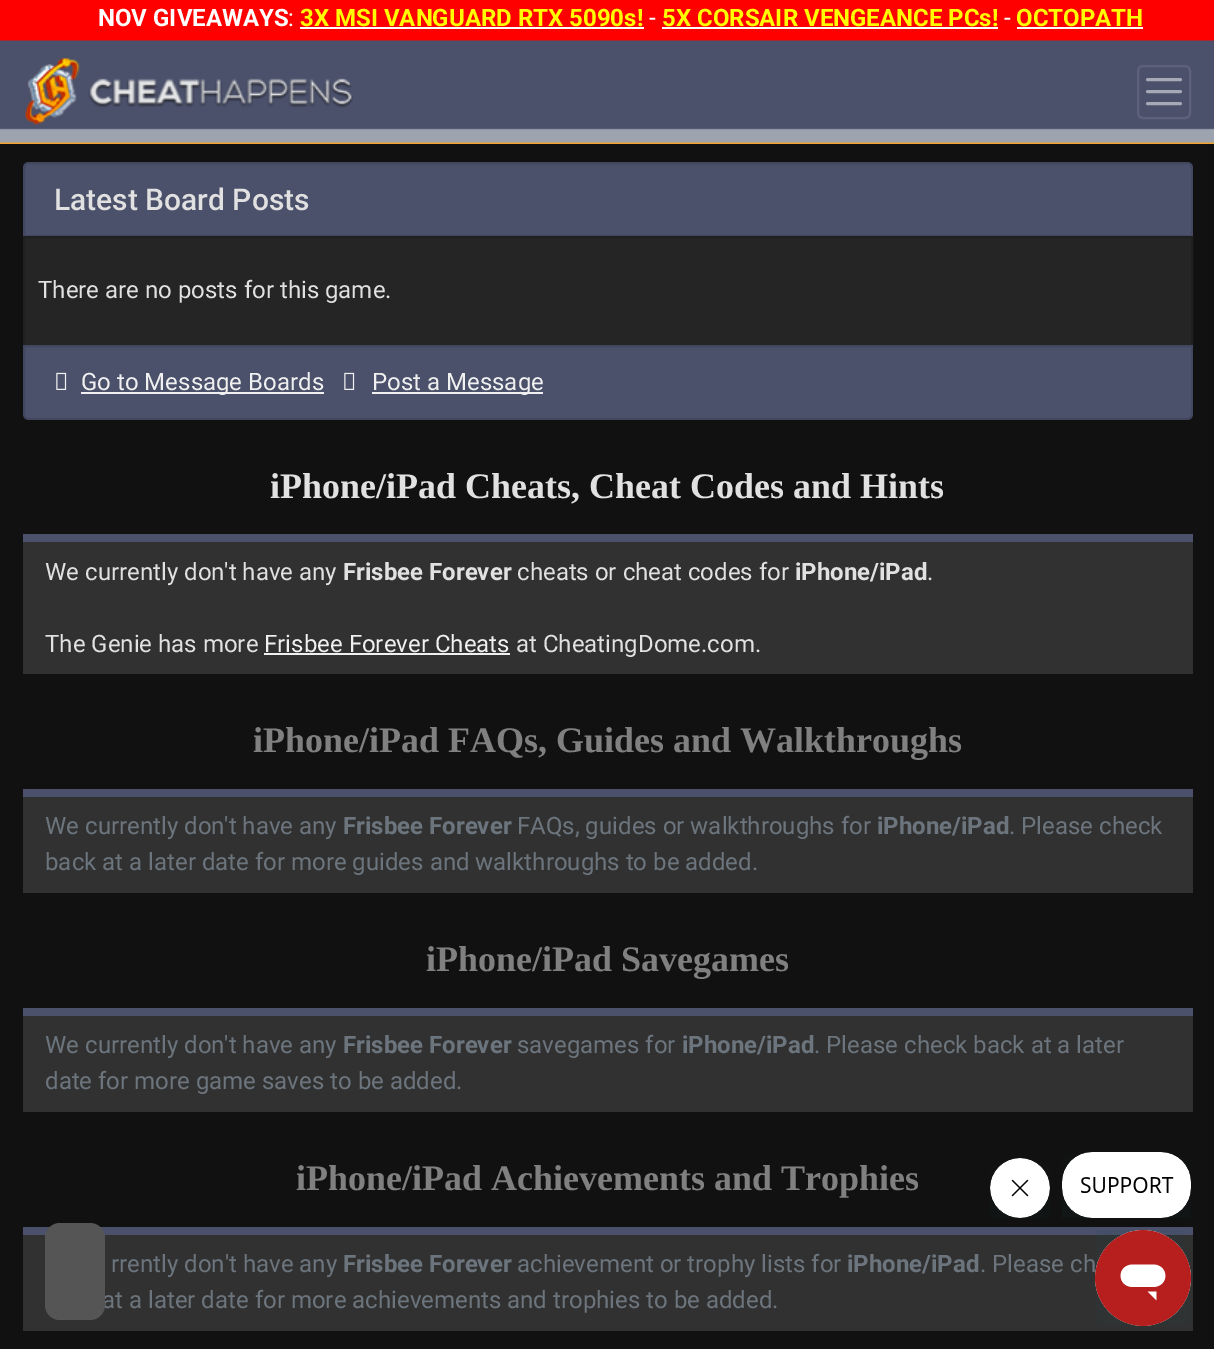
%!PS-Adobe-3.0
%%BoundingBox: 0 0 1214 1349
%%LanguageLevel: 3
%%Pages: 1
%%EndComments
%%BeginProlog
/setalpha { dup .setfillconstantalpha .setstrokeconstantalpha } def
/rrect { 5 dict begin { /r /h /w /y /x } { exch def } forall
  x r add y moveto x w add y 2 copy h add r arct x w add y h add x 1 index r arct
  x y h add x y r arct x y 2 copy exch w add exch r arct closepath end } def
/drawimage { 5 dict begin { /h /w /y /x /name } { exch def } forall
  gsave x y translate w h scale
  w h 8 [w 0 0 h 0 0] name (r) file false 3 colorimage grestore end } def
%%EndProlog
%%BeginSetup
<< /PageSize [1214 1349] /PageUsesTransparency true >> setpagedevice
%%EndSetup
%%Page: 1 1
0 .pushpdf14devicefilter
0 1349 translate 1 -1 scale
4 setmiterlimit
0.067 setgray
0 0 1214 1349 rectfill
1 0 0 setrgbcolor
0 0 1214 41 rectfill
1 setgray
300 27 344 2 rectfill
662 27 336 2 rectfill
1017 27 126 2 rectfill
(images/1.raw) 0 40 1214 104 drawimage
(images/2.raw) 25 58 328 67 drawimage
0.365 0.384 0.478 setrgbcolor
2 setlinewidth
1138 66 52 52 5 rrect stroke
0.647 0.659 0.71 setrgbcolor
3 setlinewidth
1 setlinecap
newpath 1147.5 79.5 moveto 1180.5 79.5 lineto 1147.5 91.5 moveto 1180.5 91.5 lineto 1147.5 103.5 moveto 1180.5 103.5 lineto stroke
0.294 0.318 0.42 setrgbcolor
newpath 29 162 moveto 1187 162 lineto 1190.5 162 1193 164.5 1193 168 curveto 1193 237 lineto 23 237 lineto 23 168 lineto 23 164.5 25.5 162 29 162 curveto closepath fill
0.12 setalpha
0 setgray
2 setlinewidth
0 setlinecap
newpath 29 163 moveto 1187 163 lineto 1190 163 1192 165 1192 168 curveto 1192 236 lineto 24 236 lineto 24 168 lineto 24 165 26 163 29 163 curveto closepath stroke
1 setalpha
0.145 setgray
newpath 24 237 moveto 1192 237 lineto 1192 346 lineto 24 346 lineto closepath gsave fill grestore
0.125 setgray
stroke
0.294 0.318 0.42 setrgbcolor
newpath 23 345 moveto 1193 345 lineto 1193 414 lineto 1193 417.5 1190.5 420 1187 420 curveto 29 420 lineto 25.5 420 23 417.5 23 414 curveto closepath fill
0.12 setalpha
0 setgray
newpath 24 346 moveto 1192 346 lineto 1192 414 lineto 1192 417 1190 419 1187 419 curveto 29 419 lineto 26 419 24 417 24 414 curveto closepath stroke
1 setalpha
(images/3.raw) 56 372 11 18 drawimage
0.941 setgray
81 392 243 2 rectfill
(images/3.raw) 344 372 11 18 drawimage
372 392 171 2 rectfill
0.192 setgray
23 542 1170 132 rectfill
0.294 0.318 0.42 setrgbcolor
23 534 1170 8 rectfill
0.941 setgray
264 653 246 2 rectfill
0.192 setgray
23 797 1170 96 rectfill
0.294 0.318 0.42 setrgbcolor
23 789 1170 8 rectfill
0.192 setgray
23 1016 1170 96 rectfill
0.294 0.318 0.42 setrgbcolor
23 1008 1170 8 rectfill
0.192 setgray
23 1235 1170 96 rectfill
0.294 0.318 0.42 setrgbcolor
23 1227 1170 8 rectfill
(images/4.raw) 990 1158 60 60 drawimage
(images/5.raw) 1062 1152 129 66 drawimage
(images/6.raw) 1095 1230 96 96 drawimage
/Roboto-Bold [24 0 0 -24 0 0] selectfont
1 setgray
98 26 moveto (NOV GIVEAWAYS) show
/Roboto-Regular [24 0 0 -24 0 0] selectfont
288 26 moveto (:) show
/Roboto-Bold [24 0 0 -24 0 0] selectfont
1 1 0 setrgbcolor
300 26 moveto (3X MSI VANGUARD RTX 5090s!) show
/Roboto-Regular [24 0 0 -24 0 0] selectfont
1 setgray
649 26 moveto (-) show
/Roboto-Bold [24 0 0 -24 0 0] selectfont
1 1 0 setrgbcolor
662 26 moveto (5X CORSAIR VENGEANCE PCs!) show
/Roboto-Regular [24 0 0 -24 0 0] selectfont
1 setgray
1004 26 moveto (-) show
/Roboto-Bold [24 0 0 -24 0 0] selectfont
1 1 0 setrgbcolor
1016 26 moveto (OCTOPATH) show
/Roboto-Medium [30 0 0 -30 0 0] selectfont
0.882 setgray
54 210 moveto (Latest Board Posts) show
/Roboto-Regular [24 0 0 -24 0 0] selectfont
38 298 moveto (There are no posts for this game.) show
0.941 setgray
81 390 moveto (Go to Message Boards) show
372 390 moveto (Post a Message) show
/LiberationSerif-Bold [36 0 0 -36 0 0] selectfont
0.882 setgray
270 498 moveto (iPhone/iPad Cheats, Cheat Codes and Hints) show
/Roboto-Regular [24 0 0 -24 0 0] selectfont
45 580 moveto (We currently don't have any) show
/Roboto-Bold [24 0 0 -24 0 0] selectfont
343 580 moveto (Frisbee Forever) show
/Roboto-Regular [24 0 0 -24 0 0] selectfont
517 580 moveto (cheats or cheat codes for) show
/Roboto-Bold [24 0 0 -24 0 0] selectfont
795 580 moveto (iPhone/iPad) show
/Roboto-Regular [24 0 0 -24 0 0] selectfont
927 580 moveto (.) show
45 652 moveto (The Genie has more) show
0.941 setgray
264 652 moveto (Frisbee Forever Cheats) show
0.882 setgray
516 652 moveto (at CheatingDome.com.) show
/LiberationSerif-Bold [36 0 0 -36 0 0] selectfont
0.502 setgray
253 752 moveto (iPhone/iPad FAQs, Guides and Walkthroughs) show
/Roboto-Regular [24 0 0 -24 0 0] selectfont
0.424 0.459 0.49 setrgbcolor
45 834 moveto (We currently don't have any) show
/Roboto-Bold [24 0 0 -24 0 0] selectfont
343 834 moveto (Frisbee Forever) show
/Roboto-Regular [24 0 0 -24 0 0] selectfont
517 834 moveto (FAQs, guides or walkthroughs for) show
/Roboto-Bold [24 0 0 -24 0 0] selectfont
877 834 moveto (iPhone/iPad) show
/Roboto-Regular [24 0 0 -24 0 0] selectfont
1009 834 moveto (. Please check) show
45 870 moveto (back at a later date for more guides and walkthroughs to be added.) show
/LiberationSerif-Bold [36 0 0 -36 0 0] selectfont
0.502 setgray
426 971 moveto (iPhone/iPad Savegames) show
/Roboto-Regular [24 0 0 -24 0 0] selectfont
0.424 0.459 0.49 setrgbcolor
45 1053 moveto (We currently don't have any) show
/Roboto-Bold [24 0 0 -24 0 0] selectfont
343 1053 moveto (Frisbee Forever) show
/Roboto-Regular [24 0 0 -24 0 0] selectfont
517 1053 moveto (savegames for) show
/Roboto-Bold [24 0 0 -24 0 0] selectfont
682 1053 moveto (iPhone/iPad) show
/Roboto-Regular [24 0 0 -24 0 0] selectfont
814 1053 moveto (. Please check back at a later) show
45 1089 moveto (date for more game saves to be added.) show
/LiberationSerif-Bold [36 0 0 -36 0 0] selectfont
0.502 setgray
296 1190 moveto (iPhone/iPad Achievements and Trophies) show
/Roboto-Regular [24 0 0 -24 0 0] selectfont
0.424 0.459 0.49 setrgbcolor
111 1272 moveto (rrently don't have any) show
/Roboto-Bold [24 0 0 -24 0 0] selectfont
343 1272 moveto (Frisbee Forever) show
/Roboto-Regular [24 0 0 -24 0 0] selectfont
517 1272 moveto (achievement or trophy lists for) show
/Roboto-Bold [24 0 0 -24 0 0] selectfont
847 1272 moveto (iPhone/iPad) show
/Roboto-Regular [24 0 0 -24 0 0] selectfont
980 1272 moveto (. Please ch) show
102 1308 moveto (at a later date for more achievements and trophies to be added.) show
0.333 setgray
45 1223 60 97 15 rrect fill
.poppdf14devicefilter showpage
%%EOF
